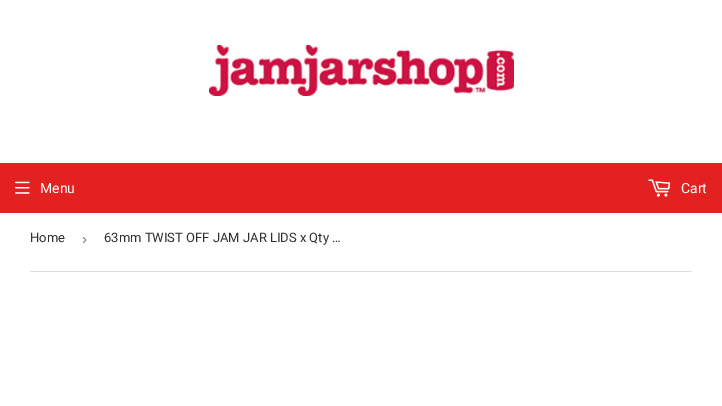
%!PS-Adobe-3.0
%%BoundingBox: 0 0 722 406
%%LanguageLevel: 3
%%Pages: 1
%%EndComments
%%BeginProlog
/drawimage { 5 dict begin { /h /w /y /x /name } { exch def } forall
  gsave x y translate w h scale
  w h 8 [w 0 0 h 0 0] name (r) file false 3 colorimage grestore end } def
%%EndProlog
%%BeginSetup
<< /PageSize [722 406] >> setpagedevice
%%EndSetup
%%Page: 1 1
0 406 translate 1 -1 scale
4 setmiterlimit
1 setgray
0 0 722 406 rectfill
(images/1.raw) 209 45 305 51 drawimage
0.886 0.129 0.125 setrgbcolor
0 163 722 50 rectfill
(images/2.raw) 15 181 15 13 drawimage
(images/3.raw) 648 179 23 18 drawimage
0.871 setgray
30 271 662 1 rectfill
/Roboto-Regular [14 0 0 -14 0 0] selectfont
1 setgray
40 193 moveto (Menu) show
681 193 moveto (Cart) show
/Roboto-Regular [13 0 0 -13 0 0] selectfont
0.184 setgray
30 242 moveto (Home) show
/LiberationSans-Regular [15 0 0 -15 0 0] selectfont
0.463 setgray
82 244 moveto (›) show
/Roboto-Regular [13 0 0 -13 0 0] selectfont
0.184 setgray
104 242 moveto (63mm TWIST OFF JAM JAR LIDS x Qty …) show
showpage
%%EOF
